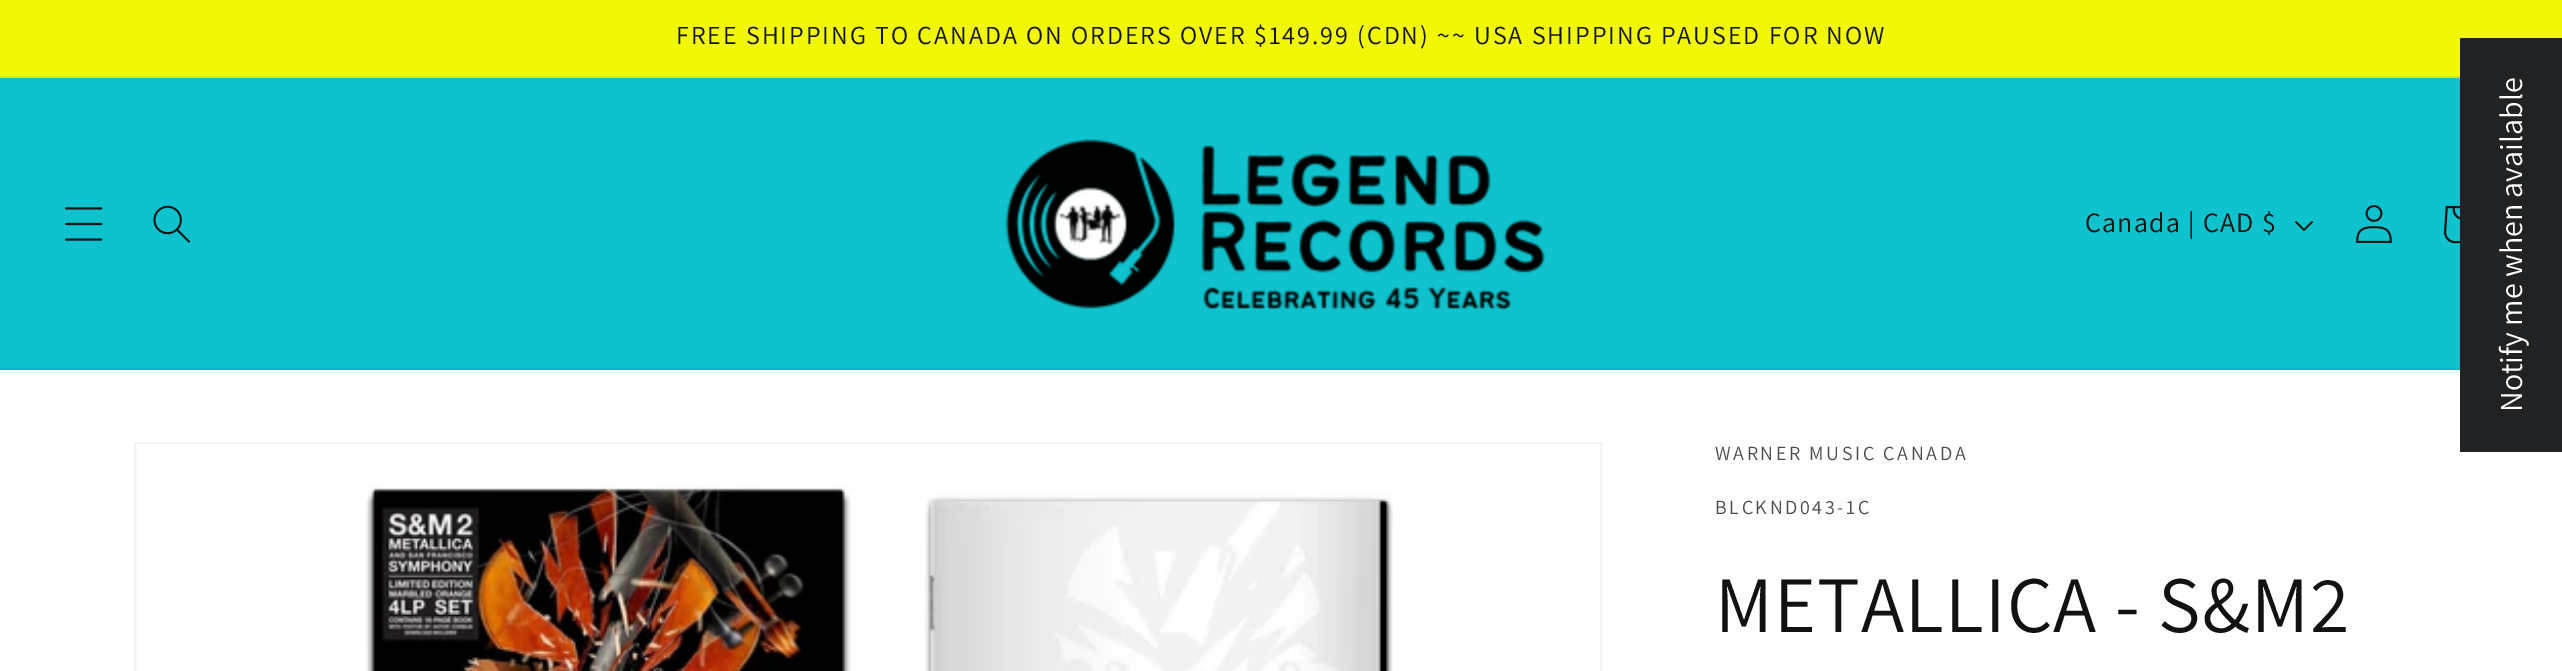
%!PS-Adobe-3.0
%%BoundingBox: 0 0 2562 671
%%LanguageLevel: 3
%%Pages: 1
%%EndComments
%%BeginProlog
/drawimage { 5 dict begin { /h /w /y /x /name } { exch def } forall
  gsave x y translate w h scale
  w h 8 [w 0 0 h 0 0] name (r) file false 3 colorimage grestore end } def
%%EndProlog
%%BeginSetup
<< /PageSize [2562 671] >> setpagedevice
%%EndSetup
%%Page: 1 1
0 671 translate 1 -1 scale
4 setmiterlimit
1 setgray
0 0 2562 671 rectfill
0.941 0.973 0.031 setrgbcolor
0 0 2562 76 rectfill
0.871 0.902 0.035 setrgbcolor
0 76 2460 2 rectfill
0.055 0.765 0.804 setrgbcolor
0 78 2460 290 rectfill
0.055 0.71 0.745 setrgbcolor
0 368 2460 2 rectfill
(images/1.raw) 65 207 38 34 drawimage
(images/2.raw) 153 205 37 38 drawimage
(images/3.raw) 1005 139 540 172 drawimage
(images/4.raw) 2295 221 18 10 drawimage
(images/5.raw) 2356 205 36 38 drawimage
(images/6.raw) 2444 205 16 39 drawimage
0.125 0.133 0.137 setrgbcolor
2460 38 102 414 rectfill
0.953 setgray
2 setlinewidth
135 443 1466 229 rectstroke
(images/7.raw) 366 485 1027 186 drawimage
/Assistant-Regular [26 0 0 -26 0 0] selectfont
0.071 setgray
676 44 moveto 2 0 (FREE SHIPPING TO CANADA ON ORDERS OVER $149.99 \(CDN\) ~~ USA SHIPPING PAUSED FOR NOW) ashow
/Assistant-Regular [28 0 0 -28 0 0] selectfont
2085 232 moveto 1.25 0 (Canada | CAD $) ashow
/Assistant-Regular [32 0 0 -32 0 0] selectfont
1 setgray
gsave 2522 412 translate -90 rotate 0 0 moveto (Notify me when available) show grestore
/Assistant-Regular [20 0 0 -20 0 0] selectfont
0.302 setgray
1715 460 moveto 2.6 0 (WARNER MUSIC CANADA) ashow
1715 514 moveto 2.6 0 (BLCKND043-1C) ashow
/Assistant-Regular [80 0 0 -80 0 0] selectfont
0.071 setgray
1715 632 moveto 1.25 0 (METALLICA - S&M2) ashow
showpage
%%EOF
